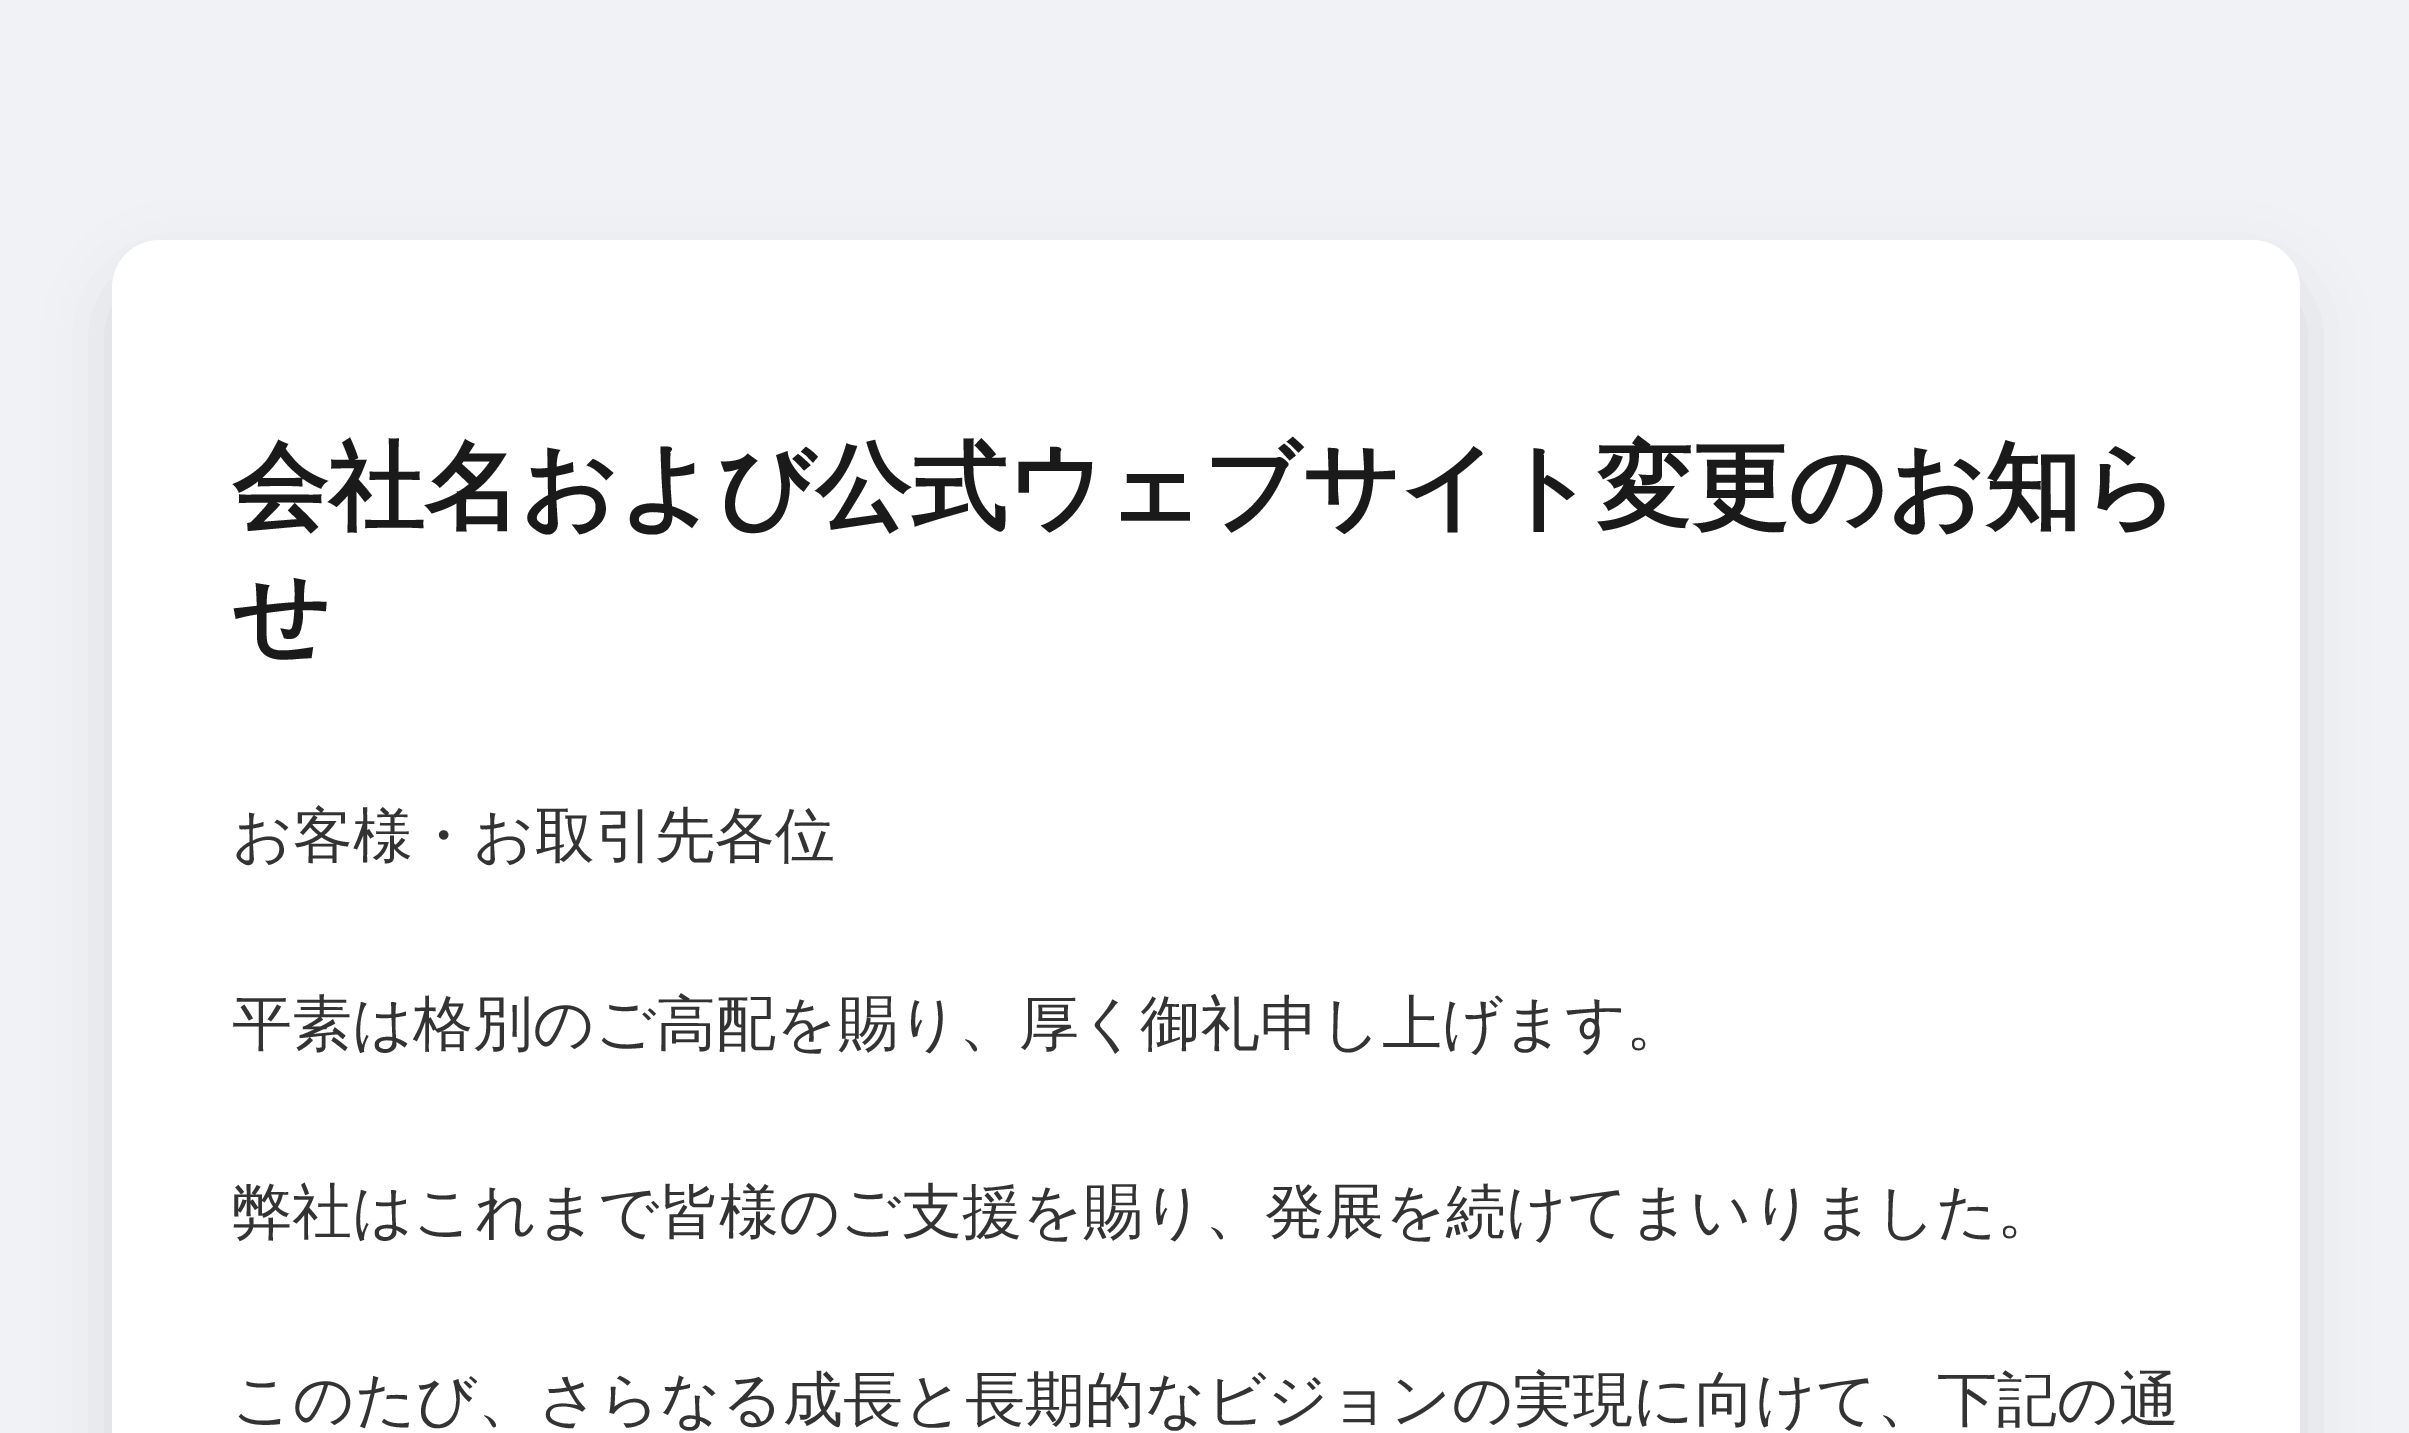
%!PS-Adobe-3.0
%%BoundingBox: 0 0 2409 1433
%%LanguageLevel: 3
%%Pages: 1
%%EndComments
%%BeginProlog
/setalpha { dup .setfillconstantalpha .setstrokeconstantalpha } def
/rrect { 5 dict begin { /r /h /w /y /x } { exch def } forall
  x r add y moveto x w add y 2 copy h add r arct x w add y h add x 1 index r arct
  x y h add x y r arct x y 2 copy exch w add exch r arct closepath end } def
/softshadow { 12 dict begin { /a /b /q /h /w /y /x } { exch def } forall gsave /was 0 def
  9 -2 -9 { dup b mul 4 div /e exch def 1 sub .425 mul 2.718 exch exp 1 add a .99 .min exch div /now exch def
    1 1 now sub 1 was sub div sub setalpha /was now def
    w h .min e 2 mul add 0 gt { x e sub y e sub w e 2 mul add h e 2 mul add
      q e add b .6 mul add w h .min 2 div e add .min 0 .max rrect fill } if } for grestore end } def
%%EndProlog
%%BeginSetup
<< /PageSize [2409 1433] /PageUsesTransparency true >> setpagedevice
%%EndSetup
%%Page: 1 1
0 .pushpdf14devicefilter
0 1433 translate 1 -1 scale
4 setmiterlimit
0.941 0.949 0.961 setrgbcolor
0 0 2409 1433 rectfill
0 setgray
112 272 2188 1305 48 32 0.1 softshadow
1 setgray
112 240 2188 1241 48 rrect fill
/WenQuanYiZenHei-Bold [96 0 0 -96 0 0] selectfont
0.102 setgray
232 520 moveto (会社名および公式ウェブサイト変更のお知ら) show
232 648 moveto (せ) show
/WenQuanYiZenHei-Medium [60 0 0 -60 0 0] selectfont
0.2 setgray
232 856 moveto (お客様・お取引先各位) show
232 1044 moveto (平素は格別のご高配を賜り、厚く御礼申し上げます。) show
232 1232 moveto (弊社はこれまで皆様のご支援を賜り、発展を続けてまいりました。) show
232 1420 moveto (このたび、さらなる成長と長期的なビジョンの実現に向けて、下記の通) show
.poppdf14devicefilter showpage
%%EOF
